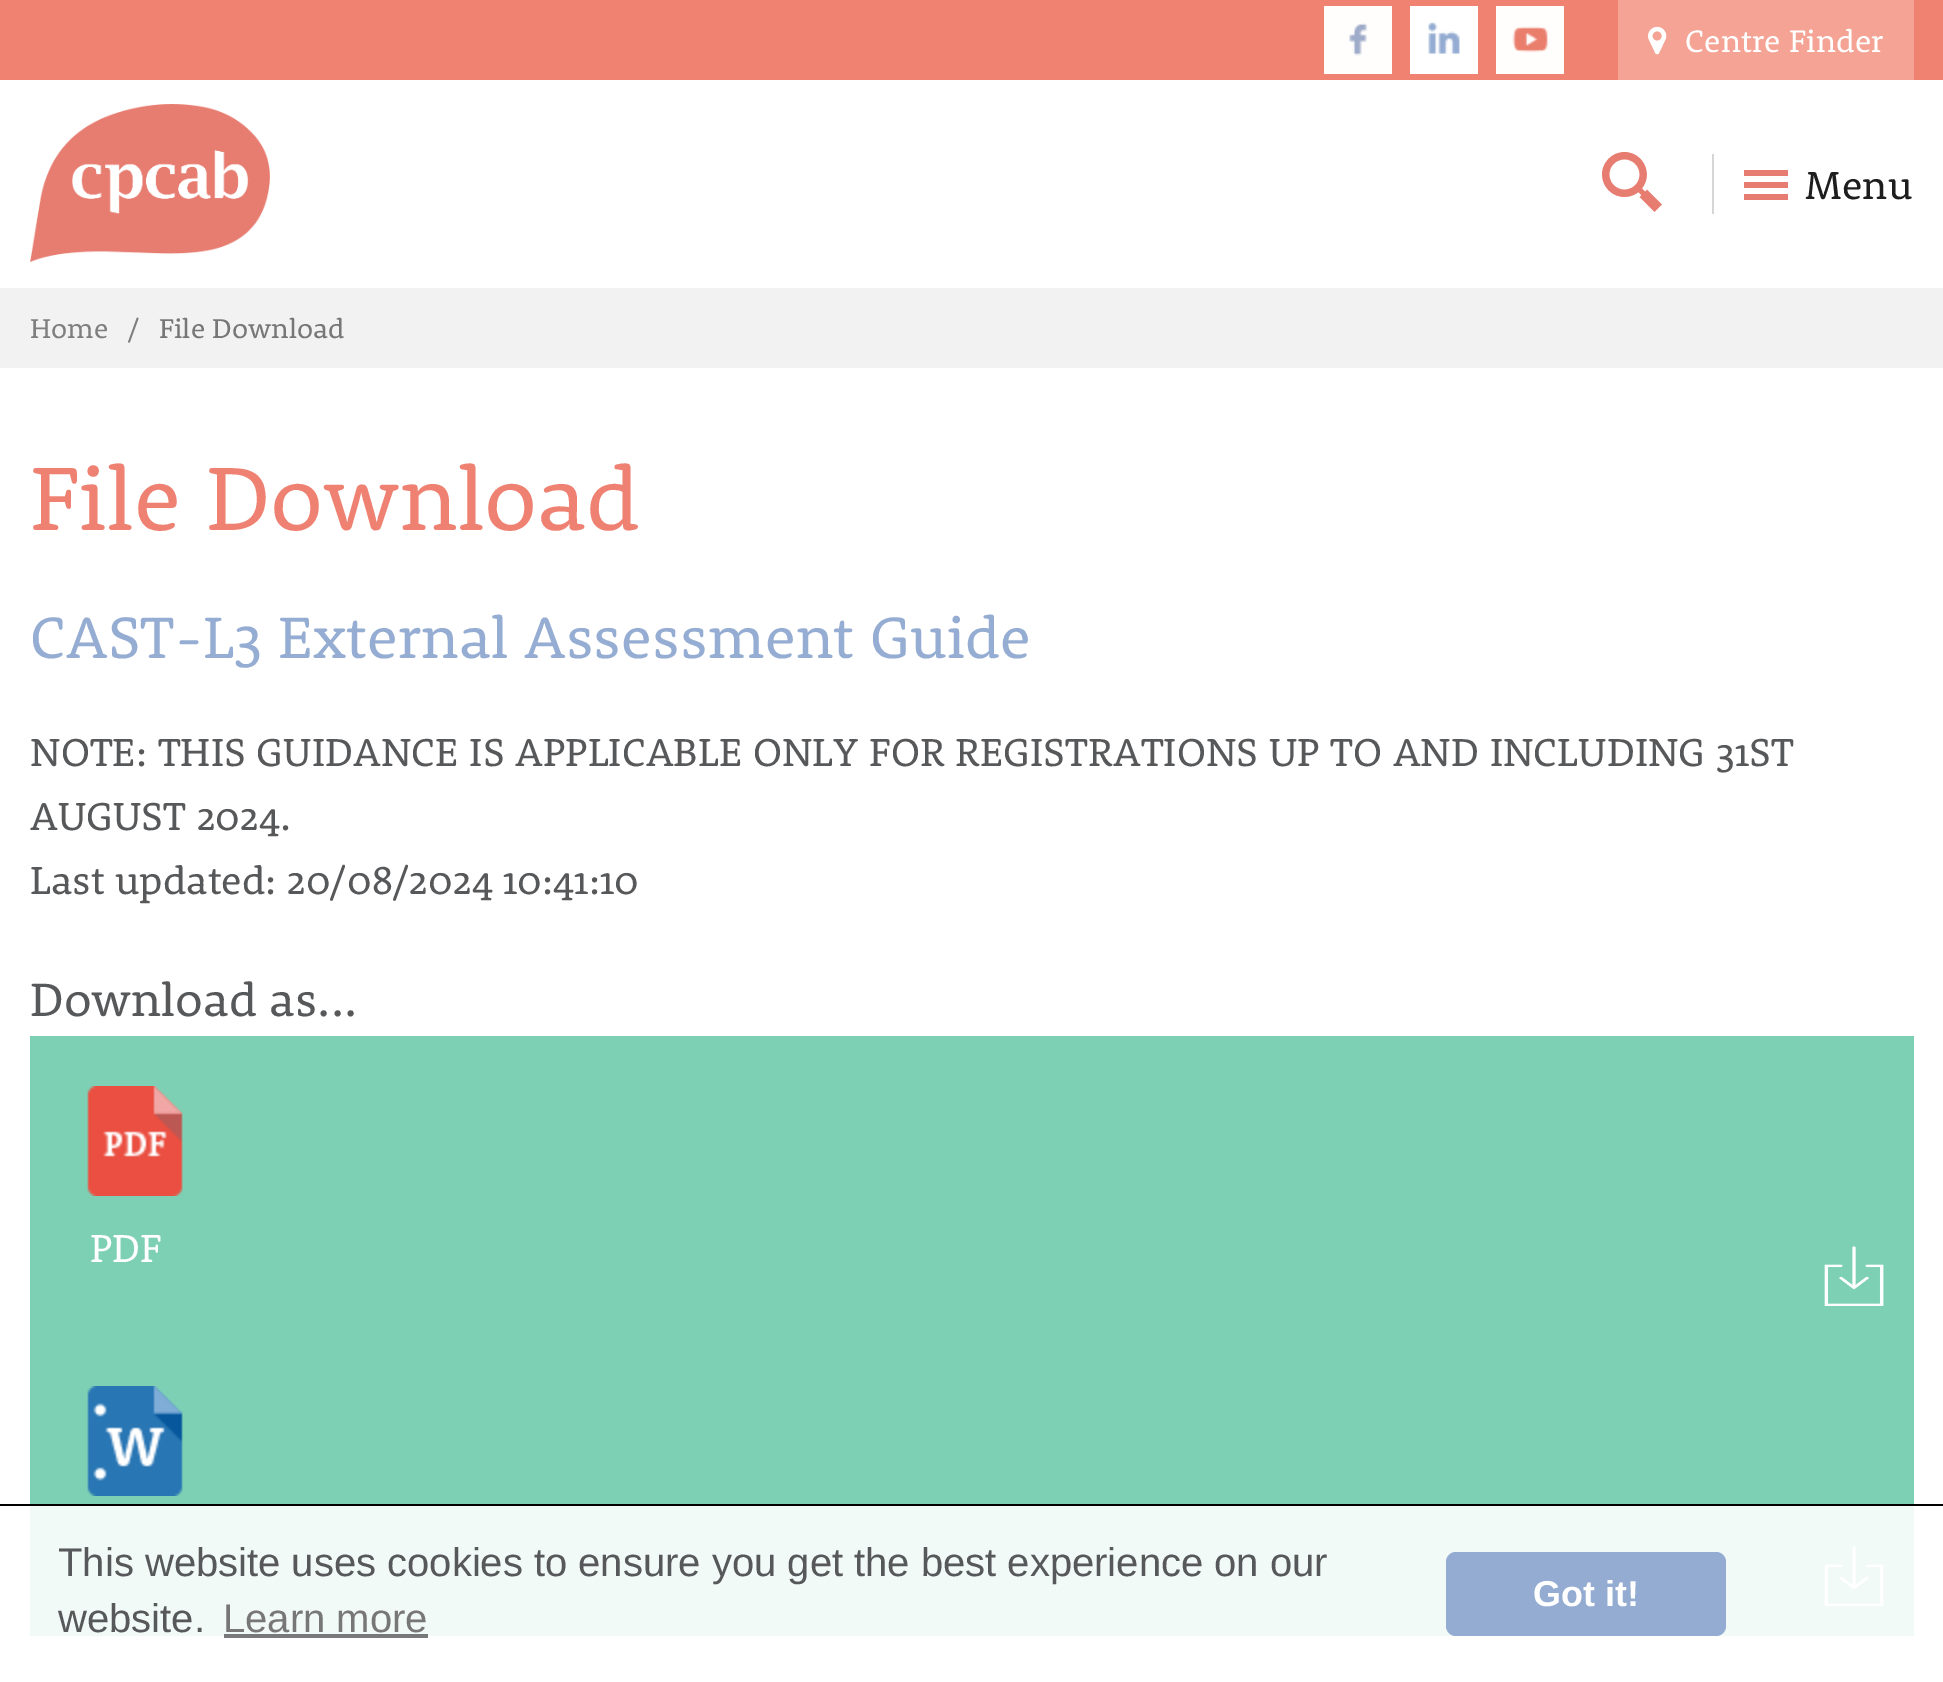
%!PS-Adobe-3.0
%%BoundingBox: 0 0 1943 1682
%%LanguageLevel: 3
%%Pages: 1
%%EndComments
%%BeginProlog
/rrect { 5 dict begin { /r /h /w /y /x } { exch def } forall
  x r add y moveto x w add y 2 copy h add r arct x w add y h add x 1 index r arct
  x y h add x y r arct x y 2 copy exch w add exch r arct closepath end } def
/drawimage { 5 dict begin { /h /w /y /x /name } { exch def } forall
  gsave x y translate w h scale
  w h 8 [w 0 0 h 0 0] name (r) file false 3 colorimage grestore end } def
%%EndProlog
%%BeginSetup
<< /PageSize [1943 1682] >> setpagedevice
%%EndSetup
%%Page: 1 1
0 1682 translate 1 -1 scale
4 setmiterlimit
1 setgray
0 0 1943 1682 rectfill
0.475 0.475 0.482 setrgbcolor
224 1636 204 2 rectfill
0.941 0.51 0.447 setrgbcolor
0 0 1943 80 rectfill
(images/1.raw) 1324 6 68 68 drawimage
(images/2.raw) 1410 6 68 68 drawimage
(images/3.raw) 1496 6 68 68 drawimage
0.957 0.639 0.58 setrgbcolor
1618 0 296 80 rectfill
(images/4.raw) 1648 26 19 29 drawimage
(images/5.raw) 30 104 240 158 drawimage
(images/6.raw) 1602 152 60 60 drawimage
0.839 setgray
1712 154 2 60 rectfill
0.906 0.486 0.439 setrgbcolor
1744 170 44 6 rectfill
1744 182 44 6 rectfill
1744 194 44 6 rectfill
0.949 setgray
0 288 1943 80 rectfill
0.494 0.816 0.706 setrgbcolor
30 1036 1884 468 rectfill
(images/7.raw) 1824 1246 60 60 drawimage
(images/8.raw) 87 1086 96 110 drawimage
0.949 0.98 0.973 setrgbcolor
30 1506 1884 130 rectfill
0.463 0.471 0.478 setrgbcolor
224 1634 204 2 rectfill
(images/9.raw) 1824 1546 60 60 drawimage
(images/10.raw) 87 1386 96 110 drawimage
0 setgray
0 1504 1943 2 rectfill
0.58 0.675 0.824 setrgbcolor
1446 1552 280 84 10 rrect fill
/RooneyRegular-Regular [32 0 0 -32 0 0] selectfont
1 setgray
1685 52 moveto (Centre Finder) show
/RooneyRegular-Regular [40 0 0 -40 0 0] selectfont
0.118 setgray
1805 199 moveto (Menu) show
/RooneyRegular-Regular [28 0 0 -28 0 0] selectfont
0.498 setgray
30 338 moveto (Home) show
128 338 moveto (/) show
0.467 setgray
159 338 moveto (File Download) show
/RooneyRegular-Regular [92 0 0 -92 0 0] selectfont
0.937 0.506 0.447 setrgbcolor
30 530 moveto (File Download) show
/RooneyRegular-Regular [60 0 0 -60 0 0] selectfont
0.584 0.678 0.824 setrgbcolor
30 658 moveto (CAST-L3 External Assessment Guide) show
/RooneyRegular-Regular [40 0 0 -40 0 0] selectfont
0.341 0.345 0.353 setrgbcolor
30 766 moveto (NOTE: THIS GUIDANCE IS APPLICABLE ONLY FOR REGISTRATIONS UP TO AND INCLUDING 31ST) show
30 830 moveto (AUGUST 2024.) show
30 894 moveto (Last updated: 20/08/2024 10:41:10) show
/RooneyRegular-Regular [48 0 0 -48 0 0] selectfont
30 1016 moveto (Download as...) show
/RooneyRegular-Regular [40 0 0 -40 0 0] selectfont
1 setgray
90 1262 moveto (PDF) show
/LiberationSans-Regular [40 0 0 -40 0 0] selectfont
0.341 0.345 0.353 setrgbcolor
58 1576 moveto (This website uses cookies to ensure you get the best experience on our) show
58 1632 moveto (website.) show
0.467 setgray
223 1632 moveto (Learn more) show
/LiberationSans-Bold [36 0 0 -36 0 0] selectfont
1 setgray
1533 1606 moveto (Got it!) show
showpage
%%EOF
